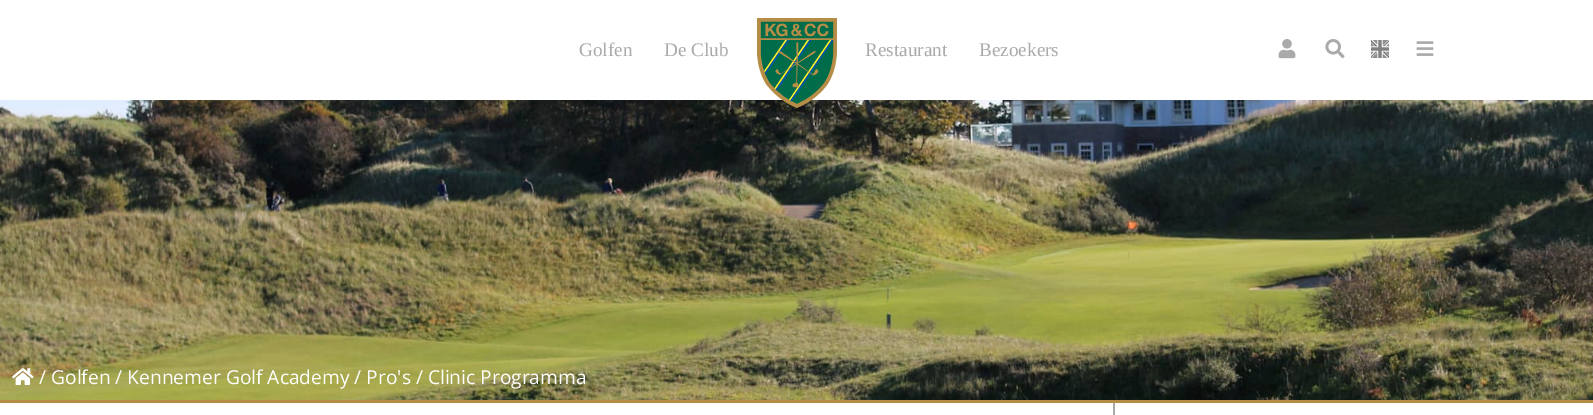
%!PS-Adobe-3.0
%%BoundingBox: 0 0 1593 415
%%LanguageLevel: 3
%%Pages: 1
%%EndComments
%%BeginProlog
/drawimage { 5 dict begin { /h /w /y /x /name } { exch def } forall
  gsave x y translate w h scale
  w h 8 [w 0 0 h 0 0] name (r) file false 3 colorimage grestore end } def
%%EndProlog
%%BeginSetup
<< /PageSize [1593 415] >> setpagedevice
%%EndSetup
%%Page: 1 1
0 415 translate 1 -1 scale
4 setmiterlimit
1 setgray
0 0 1593 415 rectfill
(images/6.raw) 0 100 1593 300 drawimage
(images/1.raw) 757 18 80 90 drawimage
(images/2.raw) 1278 39 18 20 drawimage
(images/3.raw) 1325 39 20 20 drawimage
(images/4.raw) 1371 40 18 18 drawimage
(images/5.raw) 1416 41 18 15 drawimage
0.714 0.553 0.275 setrgbcolor
0 400 1593 3 rectfill
(images/7.raw) 12 368 22 17 drawimage
0.667 setgray
1113 403 2 12 rectfill
/LiberationSerif-Regular [19.2 0 0 -19.2 0 0] selectfont
579 56 moveto (Golfen) show
664 56 moveto (De Club) show
865 56 moveto (Restaurant) show
979 56 moveto (Bezoekers) show
/OpenSans-Regular [19.2 0 0 -19.2 0 0] selectfont
1 setgray
39 384 moveto (/ Golfen / Kennemer Golf Academy / Pro's / Clinic Programma) show
showpage
%%EOF
